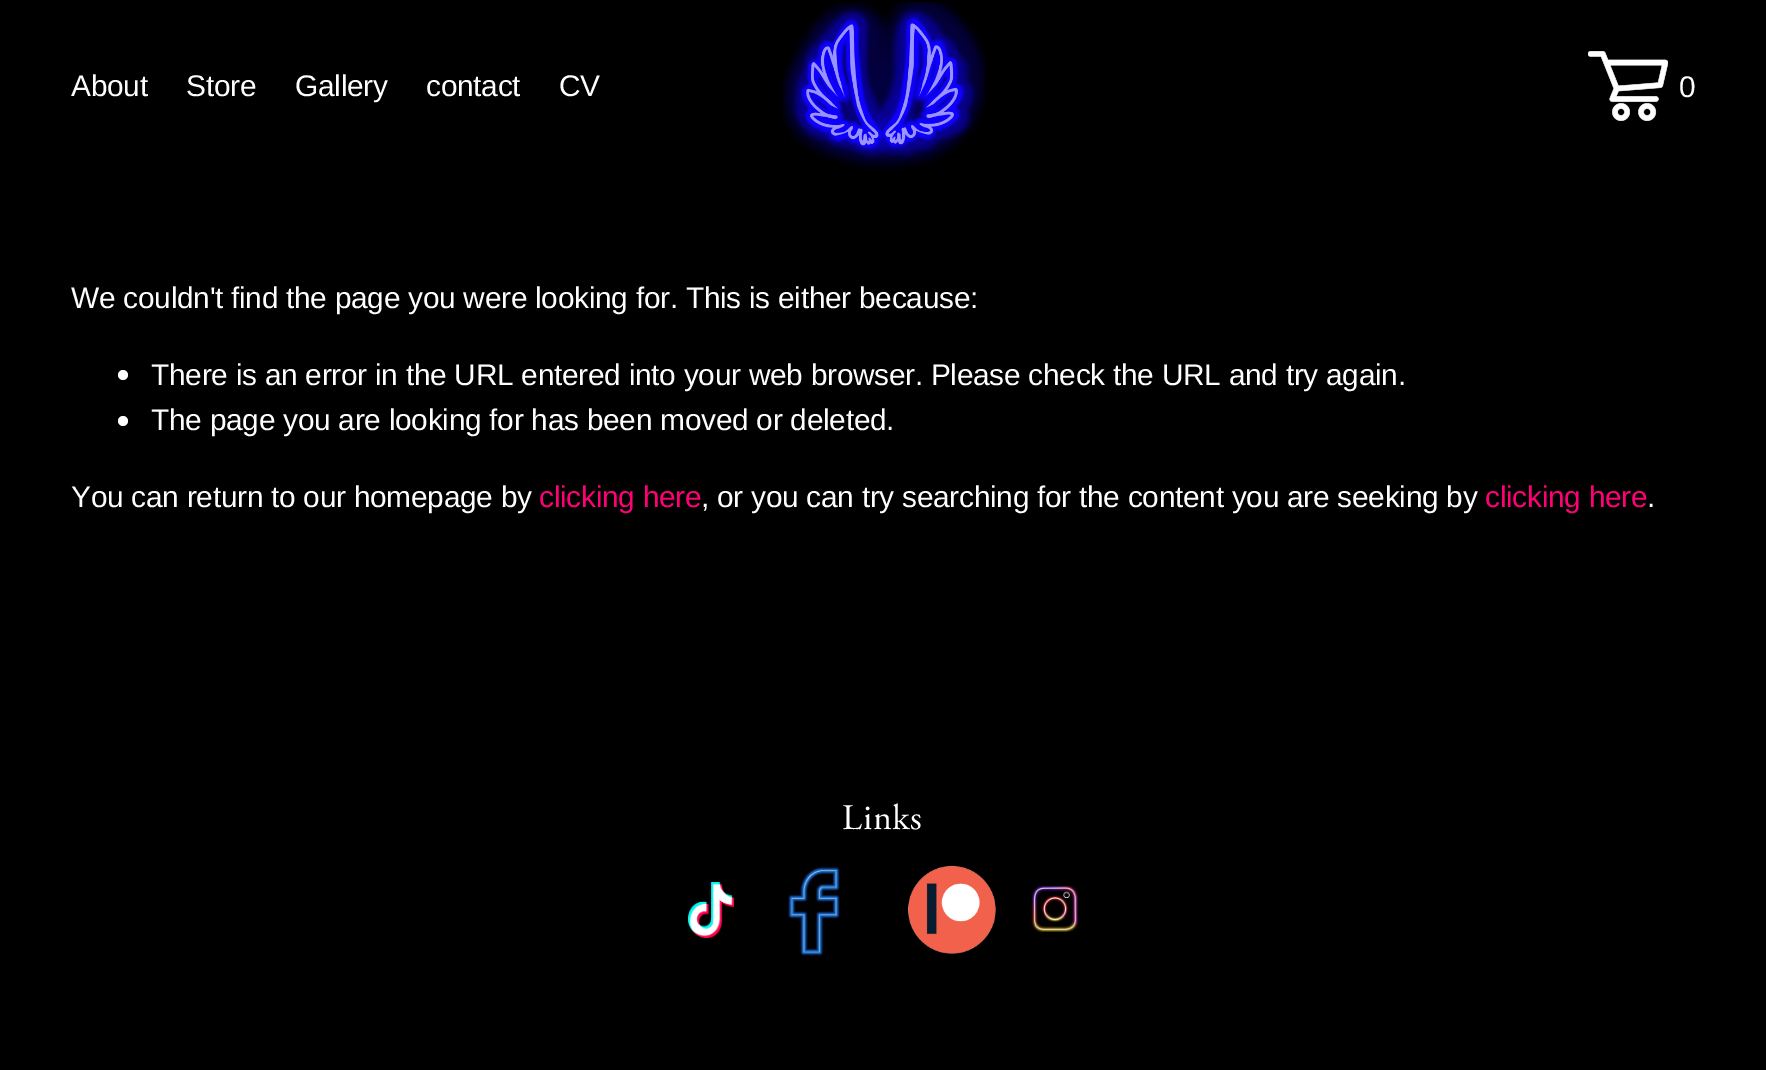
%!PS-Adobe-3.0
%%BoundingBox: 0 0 1766 1070
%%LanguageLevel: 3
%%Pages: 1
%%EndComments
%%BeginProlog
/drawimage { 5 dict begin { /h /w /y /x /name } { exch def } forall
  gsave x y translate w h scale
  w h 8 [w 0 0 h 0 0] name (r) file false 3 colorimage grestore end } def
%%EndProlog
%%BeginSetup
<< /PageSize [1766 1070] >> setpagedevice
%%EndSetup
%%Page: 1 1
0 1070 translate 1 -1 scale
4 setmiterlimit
0 setgray
0 0 1766 1070 rectfill
(images/1.raw) 782 2 204 169 drawimage
(images/2.raw) 1588 51 80 70 drawimage
1 setgray
newpath 123 375 5 0 360 arc closepath fill
newpath 123 421 5 0 360 arc closepath fill
(images/3.raw) 688 882 46 56 drawimage
(images/4.raw) 788 866 52 90 drawimage
(images/5.raw) 908 865 88 89 drawimage
(images/6.raw) 1032 886 46 46 drawimage
/LiberationSans-Regular [29.9 0 0 -29.9 0 0] selectfont
1 0.996 0.996 setrgbcolor
71 96 moveto -0.3 0 (About) ashow
186 96 moveto -0.3 0 (Store) ashow
295 96 moveto -0.3 0 (Gallery) ashow
426 96 moveto -0.3 0 (contact) ashow
559 96 moveto -0.3 0 (CV) ashow
1679 97 moveto -0.3 0 (0) ashow
71 308 moveto -0.3 0 (We couldn't find the page you were looking for. This is either because:) ashow
151 385 moveto -0.3 0 (There is an error in the URL entered into your web browser. Please check the URL and try again.) ashow
151 430 moveto -0.3 0 (The page you are looking for has been moved or deleted.) ashow
71 507 moveto -0.3 0 (You can return to our homepage by) ashow
1 0 0.463 setrgbcolor
539 507 moveto -0.3 0 (clicking here) ashow
1 0.996 0.996 setrgbcolor
701 507 moveto -0.3 0 (, or you can try searching for the content you are seeking by) ashow
1 0 0.463 setrgbcolor
1485 507 moveto -0.3 0 (clicking here) ashow
1 0.996 0.996 setrgbcolor
1647 507 moveto -0.3 0 (.) ashow
/AdobeGaramond-Regular [36 0 0 -36 0 0] selectfont
842 829 moveto 0.75 0 (Links) ashow
showpage
%%EOF
